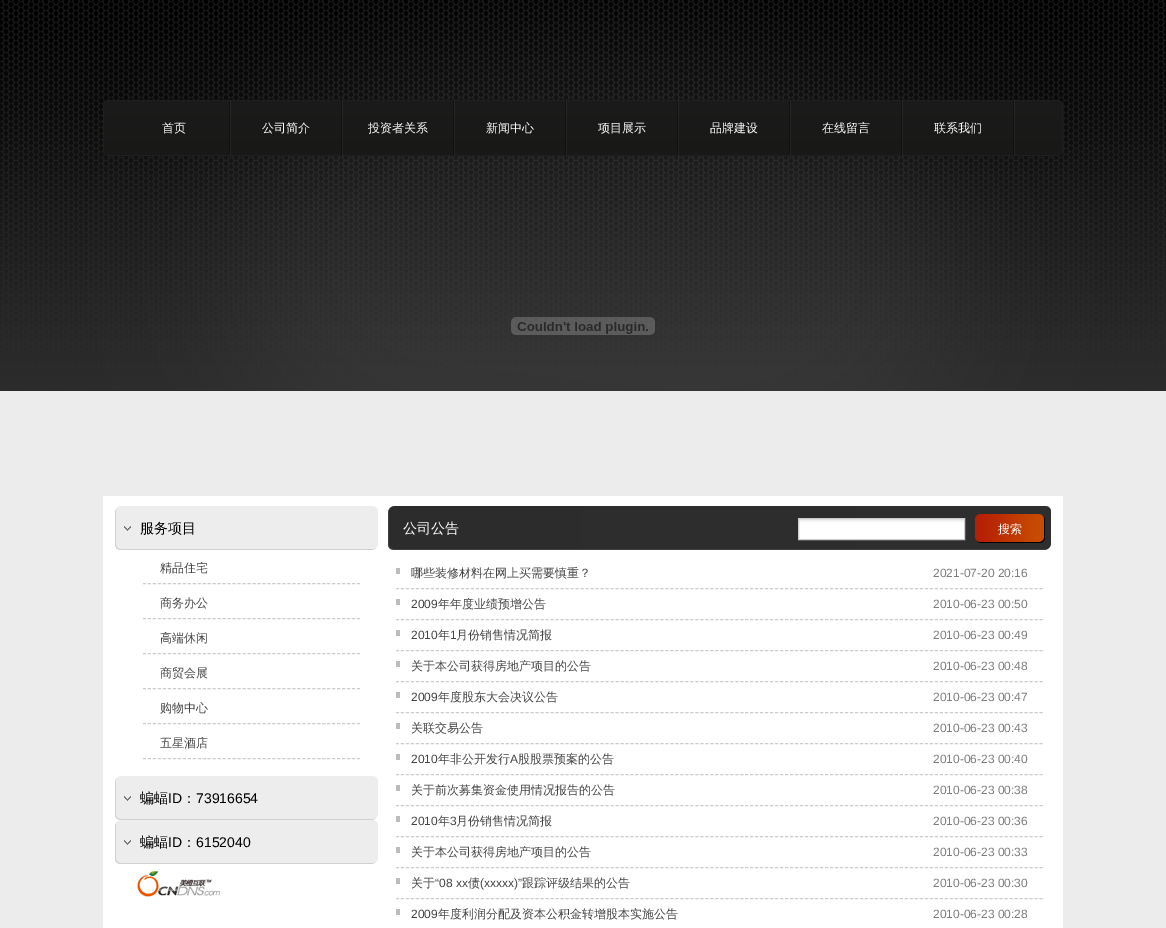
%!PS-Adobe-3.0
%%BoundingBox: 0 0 1166 928
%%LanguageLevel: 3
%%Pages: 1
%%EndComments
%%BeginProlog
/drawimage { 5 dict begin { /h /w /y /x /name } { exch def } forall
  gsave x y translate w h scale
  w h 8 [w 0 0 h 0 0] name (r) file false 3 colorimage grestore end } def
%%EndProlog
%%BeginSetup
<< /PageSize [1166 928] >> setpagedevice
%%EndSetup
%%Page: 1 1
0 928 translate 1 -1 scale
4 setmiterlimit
0.925 setgray
0 0 1166 928 rectfill
(images/1.raw) 0 0 1166 391 drawimage
(images/2.raw) 103 100 960 56 drawimage
(images/3.raw) 229 100 2 56 drawimage
(images/3.raw) 341 100 2 56 drawimage
(images/3.raw) 453 100 2 56 drawimage
(images/3.raw) 565 100 2 56 drawimage
(images/3.raw) 677 100 2 56 drawimage
(images/3.raw) 789 100 2 56 drawimage
(images/3.raw) 901 100 2 56 drawimage
(images/3.raw) 1013 100 2 56 drawimage
(images/4.raw) 511 317 144 18 drawimage
1 setgray
103 496 960 432 rectfill
(images/5.raw) 115 506 263 44 drawimage
0.8 setgray
[3 1.98] 0 setdash
newpath 143 583.5 moveto 360 583.5 lineto stroke
newpath 143 618.5 moveto 360 618.5 lineto stroke
newpath 143 653.5 moveto 360 653.5 lineto stroke
newpath 143 688.5 moveto 360 688.5 lineto stroke
newpath 143 723.5 moveto 360 723.5 lineto stroke
newpath 143 758.5 moveto 360 758.5 lineto stroke
(images/5.raw) 115 776 263 44 drawimage
(images/5.raw) 115 820 263 44 drawimage
(images/6.raw) 137 871 84 26 drawimage
(images/7.raw) 388 506 663 44 drawimage
(images/8.raw) 799 519 165 20 drawimage
[] 0 setdash
798.5 518.5 166 21 rectstroke
(images/9.raw) 975 514 70 29 drawimage
[3 1.99] 0 setdash
newpath 396 588.5 moveto 1043 588.5 lineto stroke
0.737 setgray
396 568 4 6 rectfill
0.8 setgray
newpath 396 619.5 moveto 1043 619.5 lineto stroke
0.737 setgray
396 599 4 6 rectfill
0.8 setgray
newpath 396 650.5 moveto 1043 650.5 lineto stroke
0.737 setgray
396 630 4 6 rectfill
0.8 setgray
newpath 396 681.5 moveto 1043 681.5 lineto stroke
0.737 setgray
396 661 4 6 rectfill
0.8 setgray
newpath 396 712.5 moveto 1043 712.5 lineto stroke
0.737 setgray
396 692 4 6 rectfill
0.8 setgray
newpath 396 743.5 moveto 1043 743.5 lineto stroke
0.737 setgray
396 723 4 6 rectfill
0.8 setgray
newpath 396 774.5 moveto 1043 774.5 lineto stroke
0.737 setgray
396 754 4 6 rectfill
0.8 setgray
newpath 396 805.5 moveto 1043 805.5 lineto stroke
0.737 setgray
396 785 4 6 rectfill
0.8 setgray
newpath 396 836.5 moveto 1043 836.5 lineto stroke
0.737 setgray
396 816 4 6 rectfill
0.8 setgray
newpath 396 867.5 moveto 1043 867.5 lineto stroke
0.737 setgray
396 847 4 6 rectfill
0.8 setgray
newpath 396 898.5 moveto 1043 898.5 lineto stroke
0.737 setgray
396 878 4 6 rectfill
396 909 4 6 rectfill
/WenQuanYiZenHei-Medium [12 0 0 -12 0 0] selectfont
1 setgray
162 132 moveto (首页) show
262 132 moveto (公司简介) show
368 132 moveto (投资者关系) show
486 132 moveto (新闻中心) show
598 132 moveto (项目展示) show
710 132 moveto (品牌建设) show
822 132 moveto (在线留言) show
934 132 moveto (联系我们) show
/WenQuanYiZenHei-Medium [14 0 0 -14 0 0] selectfont
0 setgray
140 533 moveto (服务项目) show
/WenQuanYiZenHei-Medium [12 0 0 -12 0 0] selectfont
0.267 setgray
160 572 moveto (精品住宅) show
160 607 moveto (商务办公) show
160 642 moveto (高端休闲) show
160 677 moveto (商贸会展) show
160 712 moveto (购物中心) show
160 747 moveto (五星酒店) show
/WenQuanYiZenHei-Medium [14 0 0 -14 0 0] selectfont
0 setgray
140 803 moveto (蝙蝠) show
/LiberationSans-Regular [14 0 0 -14 0 0] selectfont
168 803 moveto (ID) show
/WenQuanYiZenHei-Medium [14 0 0 -14 0 0] selectfont
182 803 moveto (：) show
/LiberationSans-Regular [14 0 0 -14 0 0] selectfont
196 803 moveto (73916654) show
/WenQuanYiZenHei-Medium [14 0 0 -14 0 0] selectfont
140 847 moveto (蝙蝠) show
/LiberationSans-Regular [14 0 0 -14 0 0] selectfont
168 847 moveto (ID) show
/WenQuanYiZenHei-Medium [14 0 0 -14 0 0] selectfont
182 847 moveto (：) show
/LiberationSans-Regular [14 0 0 -14 0 0] selectfont
196 847 moveto (6152040) show
/WenQuanYiZenHei-Medium [14 0 0 -14 0 0] selectfont
1 setgray
403 533 moveto (公司公告) show
/WenQuanYiZenHei-Medium [12 0 0 -12 0 0] selectfont
998 533 moveto (搜索) show
0.267 setgray
411 577 moveto (哪些装修材料在网上买需要慎重？) show
/LiberationSans-Regular [12 0 0 -12 0 0] selectfont
0.494 setgray
933 577 moveto (2021-07-20 20:16) show
0.267 setgray
411 608 moveto (2009) show
/WenQuanYiZenHei-Medium [12 0 0 -12 0 0] selectfont
438 608 moveto (年年度业绩预增公告) show
/LiberationSans-Regular [12 0 0 -12 0 0] selectfont
0.494 setgray
933 608 moveto (2010-06-23 00:50) show
0.267 setgray
411 639 moveto (2010) show
/WenQuanYiZenHei-Medium [12 0 0 -12 0 0] selectfont
438 639 moveto (年) show
/LiberationSans-Regular [12 0 0 -12 0 0] selectfont
450 639 moveto (1) show
/WenQuanYiZenHei-Medium [12 0 0 -12 0 0] selectfont
456 639 moveto (月份销售情况简报) show
/LiberationSans-Regular [12 0 0 -12 0 0] selectfont
0.494 setgray
933 639 moveto (2010-06-23 00:49) show
/WenQuanYiZenHei-Medium [12 0 0 -12 0 0] selectfont
0.267 setgray
411 670 moveto (关于本公司获得房地产项目的公告) show
/LiberationSans-Regular [12 0 0 -12 0 0] selectfont
0.494 setgray
933 670 moveto (2010-06-23 00:48) show
0.267 setgray
411 701 moveto (2009) show
/WenQuanYiZenHei-Medium [12 0 0 -12 0 0] selectfont
438 701 moveto (年度股东大会决议公告) show
/LiberationSans-Regular [12 0 0 -12 0 0] selectfont
0.494 setgray
933 701 moveto (2010-06-23 00:47) show
/WenQuanYiZenHei-Medium [12 0 0 -12 0 0] selectfont
0.267 setgray
411 732 moveto (关联交易公告) show
/LiberationSans-Regular [12 0 0 -12 0 0] selectfont
0.494 setgray
933 732 moveto (2010-06-23 00:43) show
0.267 setgray
411 763 moveto (2010) show
/WenQuanYiZenHei-Medium [12 0 0 -12 0 0] selectfont
438 763 moveto (年非公开发行) show
/LiberationSans-Regular [12 0 0 -12 0 0] selectfont
510 763 moveto (A) show
/WenQuanYiZenHei-Medium [12 0 0 -12 0 0] selectfont
518 763 moveto (股股票预案的公告) show
/LiberationSans-Regular [12 0 0 -12 0 0] selectfont
0.494 setgray
933 763 moveto (2010-06-23 00:40) show
/WenQuanYiZenHei-Medium [12 0 0 -12 0 0] selectfont
0.267 setgray
411 794 moveto (关于前次募集资金使用情况报告的公告) show
/LiberationSans-Regular [12 0 0 -12 0 0] selectfont
0.494 setgray
933 794 moveto (2010-06-23 00:38) show
0.267 setgray
411 825 moveto (2010) show
/WenQuanYiZenHei-Medium [12 0 0 -12 0 0] selectfont
438 825 moveto (年) show
/LiberationSans-Regular [12 0 0 -12 0 0] selectfont
450 825 moveto (3) show
/WenQuanYiZenHei-Medium [12 0 0 -12 0 0] selectfont
456 825 moveto (月份销售情况简报) show
/LiberationSans-Regular [12 0 0 -12 0 0] selectfont
0.494 setgray
933 825 moveto (2010-06-23 00:36) show
/WenQuanYiZenHei-Medium [12 0 0 -12 0 0] selectfont
0.267 setgray
411 856 moveto (关于本公司获得房地产项目的公告) show
/LiberationSans-Regular [12 0 0 -12 0 0] selectfont
0.494 setgray
933 856 moveto (2010-06-23 00:33) show
/WenQuanYiZenHei-Medium [12 0 0 -12 0 0] selectfont
0.267 setgray
411 887 moveto (关于) show
/LiberationSans-Regular [12 0 0 -12 0 0] selectfont
435 887 moveto (“08 xx) show
/WenQuanYiZenHei-Medium [12 0 0 -12 0 0] selectfont
468 887 moveto (债) show
/LiberationSans-Regular [12 0 0 -12 0 0] selectfont
480 887 moveto (\(xxxxx\)”) show
/WenQuanYiZenHei-Medium [12 0 0 -12 0 0] selectfont
522 887 moveto (跟踪评级结果的公告) show
/LiberationSans-Regular [12 0 0 -12 0 0] selectfont
0.494 setgray
933 887 moveto (2010-06-23 00:30) show
0.267 setgray
411 918 moveto (2009) show
/WenQuanYiZenHei-Medium [12 0 0 -12 0 0] selectfont
438 918 moveto (年度利润分配及资本公积金转增股本实施公告) show
/LiberationSans-Regular [12 0 0 -12 0 0] selectfont
0.494 setgray
933 918 moveto (2010-06-23 00:28) show
showpage
%%EOF
